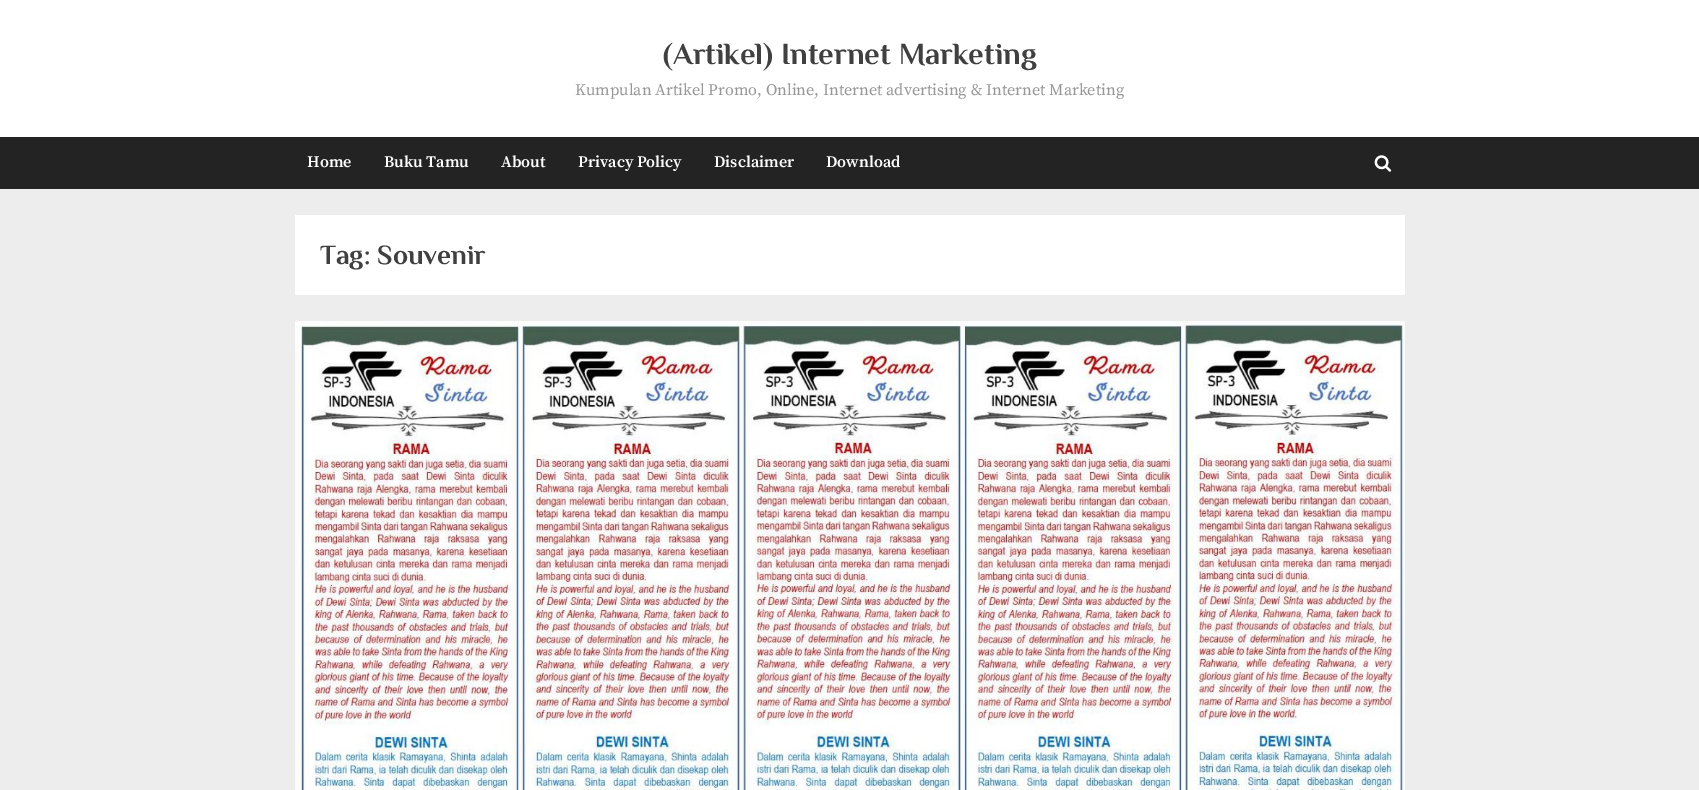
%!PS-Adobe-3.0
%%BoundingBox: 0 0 1699 790
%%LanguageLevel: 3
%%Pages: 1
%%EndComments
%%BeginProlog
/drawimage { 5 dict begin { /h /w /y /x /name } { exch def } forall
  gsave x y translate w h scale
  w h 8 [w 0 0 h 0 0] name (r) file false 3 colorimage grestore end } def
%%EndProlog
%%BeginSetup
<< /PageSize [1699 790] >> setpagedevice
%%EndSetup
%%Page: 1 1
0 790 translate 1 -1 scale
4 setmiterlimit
0.929 setgray
0 0 1699 790 rectfill
1 setgray
0 0 1699 137 rectfill
0.137 setgray
0 137 1699 52 rectfill
(images/1.raw) 1374 155 18 17 drawimage
1 setgray
295 215 1110 80 rectfill
(images/2.raw) 295 321 1110 469 drawimage
/Philosopher-Bold [30.6 0 0 -30.6 0 0] selectfont
0.251 setgray
663 64 moveto (\(Artikel\) Internet Marketing) show
/SourceSerifPro-Regular [16.15 0 0 -16.15 0 0] selectfont
0.592 setgray
575 95 moveto (Kumpulan Artikel Promo, Online, Internet advertising & Internet Marketing) show
/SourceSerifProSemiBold-SemiBold [16.15 0 0 -16.15 0 0] selectfont
1 setgray
307 167 moveto (Home) show
384 167 moveto (Buku Tamu) show
501 167 moveto (About) show
578 167 moveto (Privacy Policy) show
714 167 moveto (Disclaimer) show
826 167 moveto (Download) show
/Philosopher-Bold [27.5 0 0 -27.5 0 0] selectfont
0.251 setgray
320 264 moveto (Tag: Souvenir) show
showpage
%%EOF
